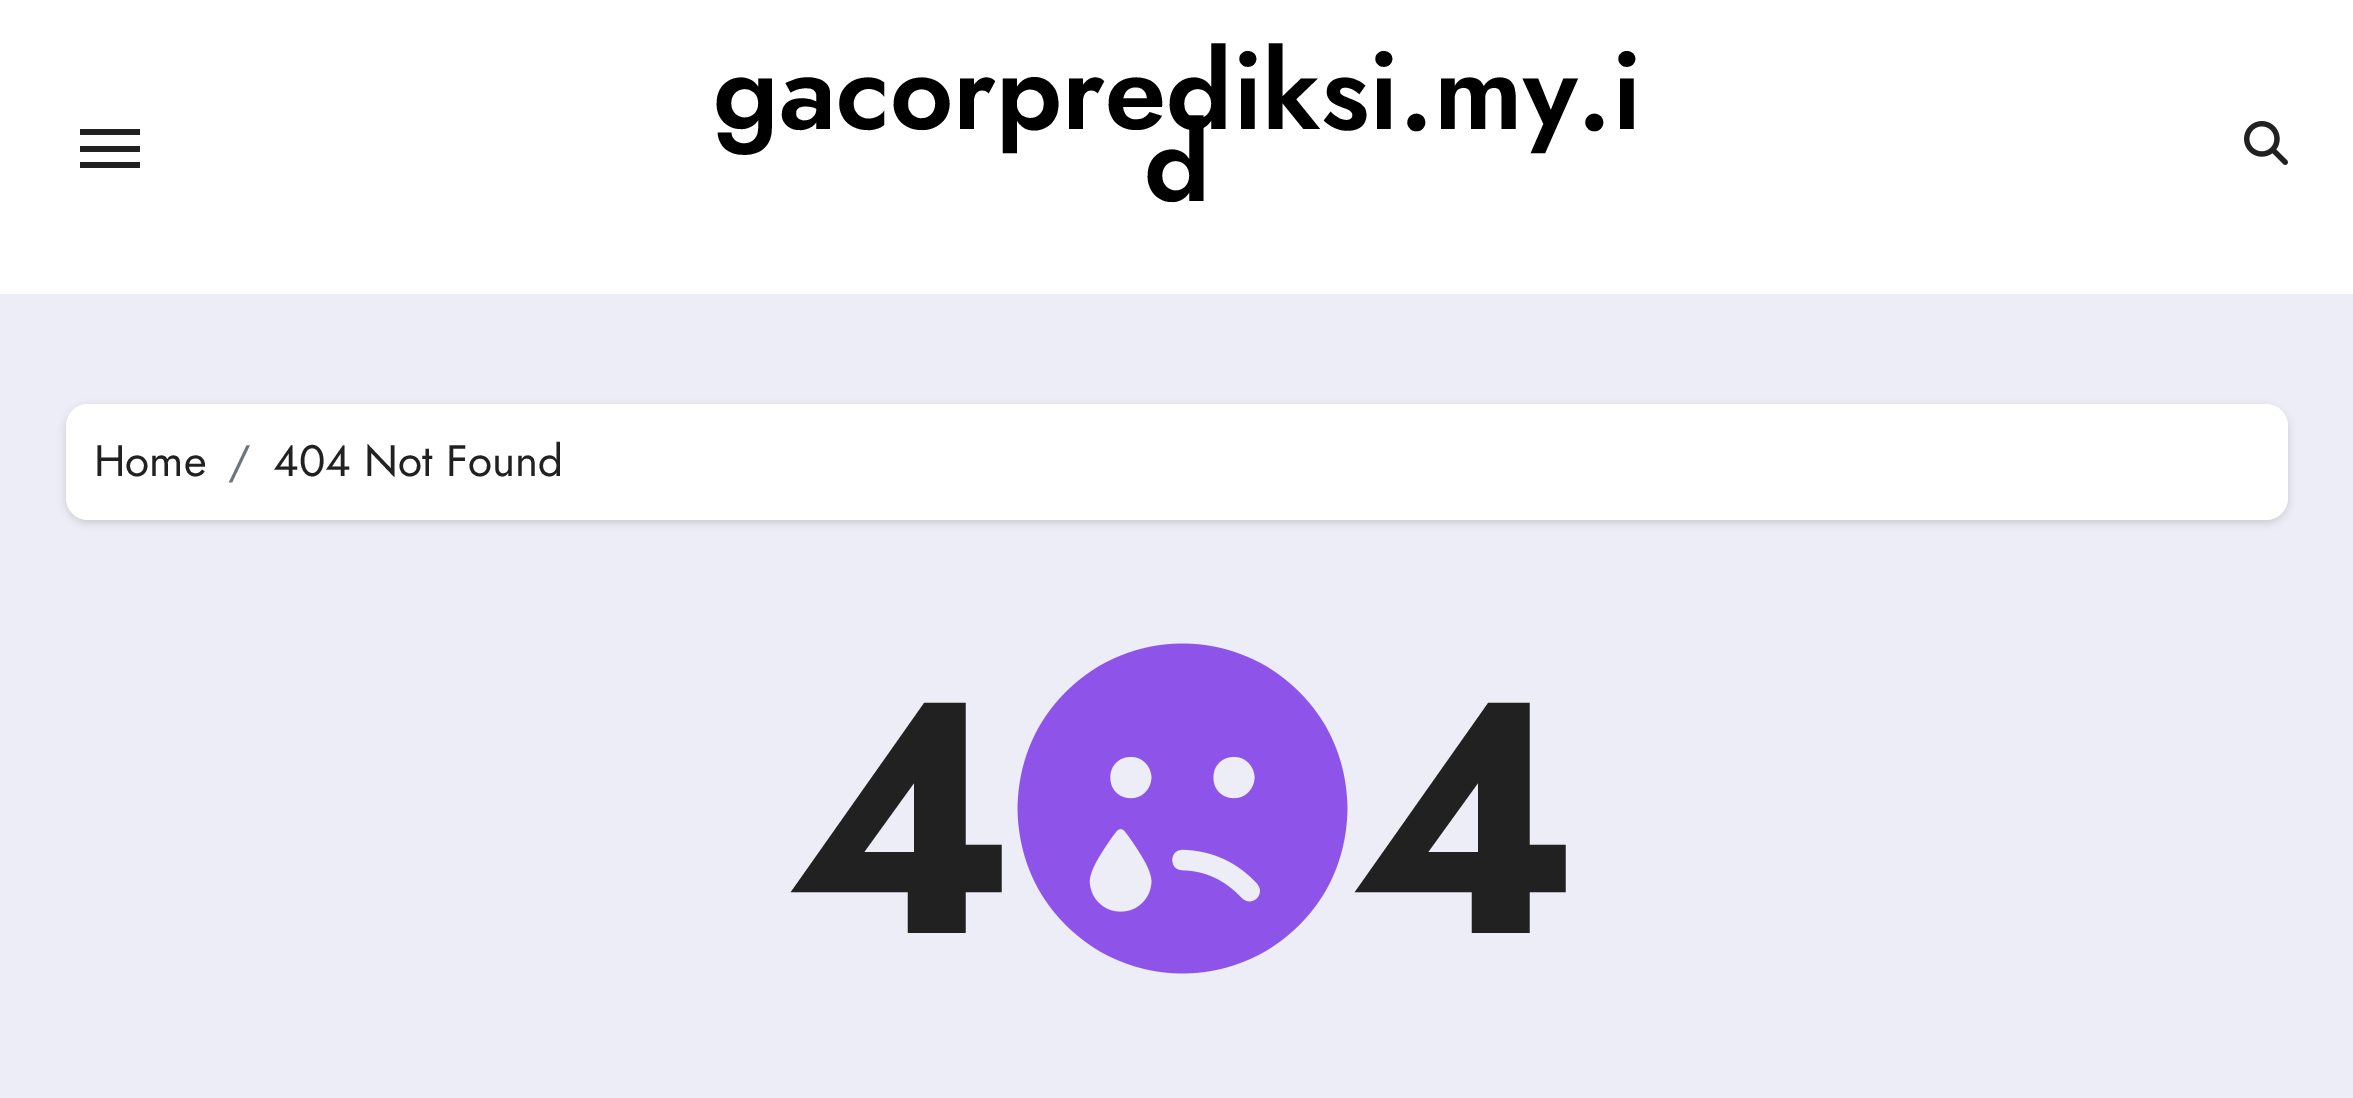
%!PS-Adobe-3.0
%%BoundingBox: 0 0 2353 1098
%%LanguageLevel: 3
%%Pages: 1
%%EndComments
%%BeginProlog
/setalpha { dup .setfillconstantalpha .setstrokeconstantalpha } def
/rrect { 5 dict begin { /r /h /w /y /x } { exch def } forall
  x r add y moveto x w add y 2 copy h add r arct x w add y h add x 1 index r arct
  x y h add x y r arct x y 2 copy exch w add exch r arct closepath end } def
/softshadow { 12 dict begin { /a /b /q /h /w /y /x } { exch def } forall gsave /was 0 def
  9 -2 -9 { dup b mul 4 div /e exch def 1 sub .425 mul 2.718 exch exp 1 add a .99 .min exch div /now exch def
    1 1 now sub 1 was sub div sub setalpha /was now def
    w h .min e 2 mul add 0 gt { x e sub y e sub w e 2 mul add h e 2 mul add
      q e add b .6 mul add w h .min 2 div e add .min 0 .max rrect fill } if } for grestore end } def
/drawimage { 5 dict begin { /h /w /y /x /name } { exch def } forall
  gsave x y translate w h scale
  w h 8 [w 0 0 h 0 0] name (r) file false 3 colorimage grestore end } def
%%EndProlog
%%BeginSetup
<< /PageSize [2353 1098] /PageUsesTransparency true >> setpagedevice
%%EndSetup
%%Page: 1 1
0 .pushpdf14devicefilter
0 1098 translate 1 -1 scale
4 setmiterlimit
0.929 0.929 0.969 setrgbcolor
0 0 2353 1098 rectfill
1 setgray
0 0 2353 294 rectfill
0.129 setgray
80 129 60 6 rectfill
80 146 60 6 rectfill
80 162 60 6 rectfill
(images/1.raw) 2244 121 44 44 drawimage
0 setgray
66 407 2222 116 22 4 0.15 softshadow
1 setgray
66 404 2222 116 22 rrect fill
(images/2.raw) 1017 643 331 331 drawimage
/Jost-SemiBold [110 0 0 -110 0 0] selectfont
0 setgray
713 129 moveto (gacorprediksi.my.i) show
1144 201 moveto (d) show
/Jost-Regular [44 0 0 -44 0 0] selectfont
0.129 setgray
94 476 moveto (Home) show
0.424 0.459 0.49 setrgbcolor
228 476 moveto (/) show
0.129 setgray
273 476 moveto (404 Not Found) show
/Jost-Bold [330 0 0 -330 0 0] selectfont
786 933 moveto -12 0 (4) ashow
1350 933 moveto -12 0 (4) ashow
.poppdf14devicefilter showpage
%%EOF
